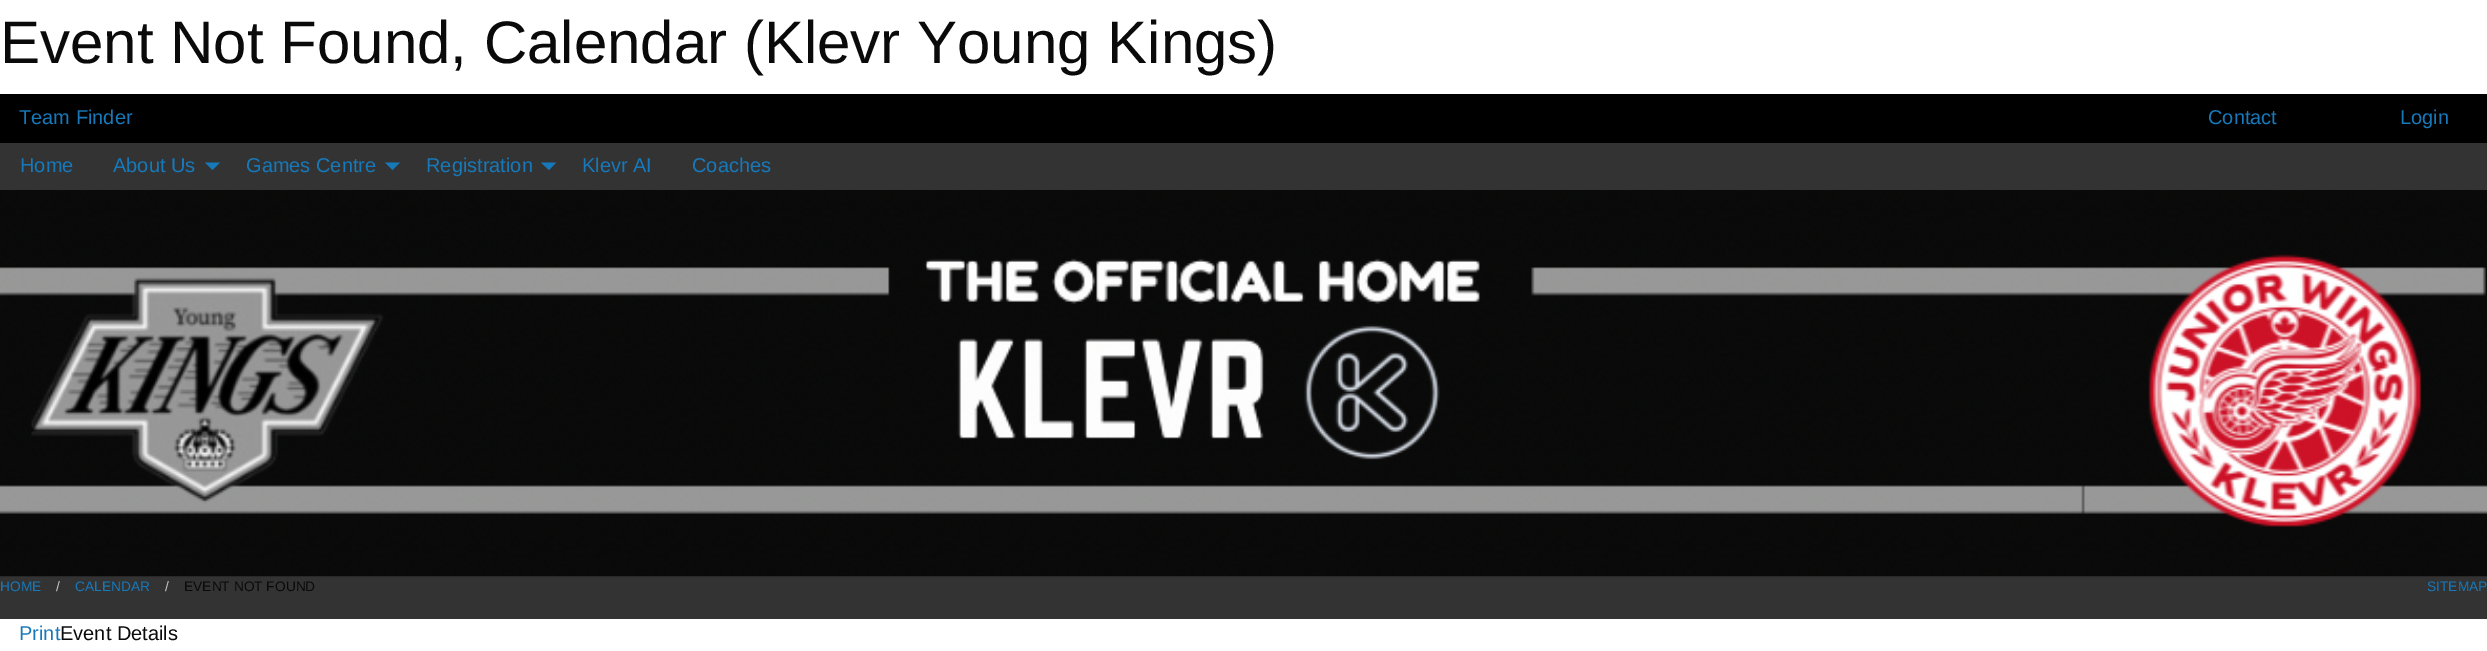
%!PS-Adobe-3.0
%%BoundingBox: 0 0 2487 651
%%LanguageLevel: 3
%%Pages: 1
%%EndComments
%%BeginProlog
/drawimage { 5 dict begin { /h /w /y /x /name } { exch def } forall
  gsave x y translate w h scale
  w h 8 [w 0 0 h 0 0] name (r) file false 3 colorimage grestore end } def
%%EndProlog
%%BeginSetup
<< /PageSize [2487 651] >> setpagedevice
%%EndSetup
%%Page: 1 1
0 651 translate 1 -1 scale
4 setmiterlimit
1 setgray
0 0 2487 651 rectfill
0 setgray
0 94 2487 49 rectfill
0.2 setgray
0 143 2487 476 rectfill
0.09 0.475 0.729 setrgbcolor
newpath 205 162.5 moveto 220 162.5 lineto 212.5 170 lineto closepath fill
newpath 385 162.5 moveto 400 162.5 lineto 392.5 170 lineto closepath fill
newpath 541 162.5 moveto 556 162.5 lineto 549 170 lineto closepath fill
(images/1.raw) 0 190 2487 387 drawimage
/LiberationSans-Regular [60 0 0 -60 0 0] selectfont
0.039 setgray
0 63 moveto (Event Not Found, Calendar \(Klevr Young Kings\)) show
/LiberationSans-Regular [20 0 0 -20 0 0] selectfont
0.09 0.475 0.729 setrgbcolor
19 124 moveto (Team Finder) show
2208 124 moveto (Contact) show
2400 124 moveto (Login) show
20 172 moveto (Home) show
113 172 moveto (About Us) show
246 172 moveto (Games Centre) show
426 172 moveto (Registration) show
582 172 moveto (Klevr AI) show
692 172 moveto (Coaches) show
/LiberationSans-Regular [13.75 0 0 -13.75 0 0] selectfont
0 591 moveto (HOME) show
0.792 setgray
56 591 moveto (/) show
0.09 0.475 0.729 setrgbcolor
75 591 moveto (CALENDAR) show
0.792 setgray
165 591 moveto (/) show
0.039 setgray
184 591 moveto (EVENT NOT FOUND) show
0.09 0.475 0.729 setrgbcolor
2427 591 moveto (SITEMAP) show
/LiberationSans-Regular [20 0 0 -20 0 0] selectfont
19 640 moveto (Print) show
0.039 setgray
60 640 moveto (Event Details) show
showpage
%%EOF
